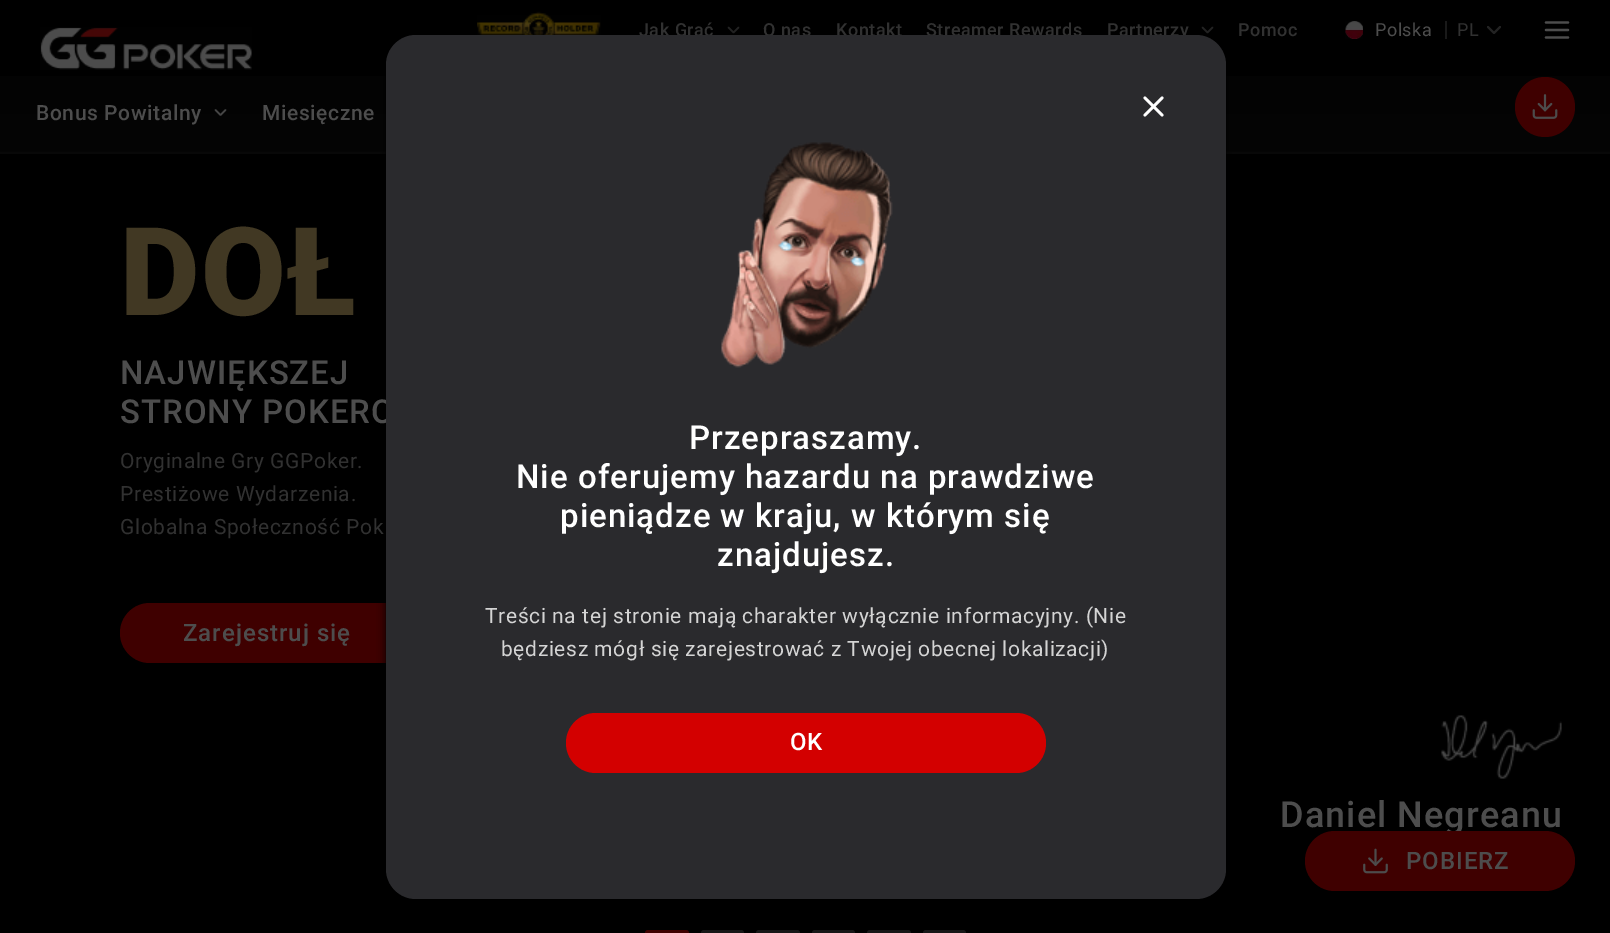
%!PS-Adobe-3.0
%%BoundingBox: 0 0 1610 933
%%LanguageLevel: 3
%%Pages: 1
%%EndComments
%%BeginProlog
/setalpha { dup .setfillconstantalpha .setstrokeconstantalpha } def
/rrect { 5 dict begin { /r /h /w /y /x } { exch def } forall
  x r add y moveto x w add y 2 copy h add r arct x w add y h add x 1 index r arct
  x y h add x y r arct x y 2 copy exch w add exch r arct closepath end } def
/softshadow { 12 dict begin { /a /b /q /h /w /y /x } { exch def } forall gsave /was 0 def
  9 -2 -9 { dup b mul 4 div /e exch def 1 sub .425 mul 2.718 exch exp 1 add a .99 .min exch div /now exch def
    1 1 now sub 1 was sub div sub setalpha /was now def
    w h .min e 2 mul add 0 gt { x e sub y e sub w e 2 mul add h e 2 mul add
      q e add b .6 mul add w h .min 2 div e add .min 0 .max rrect fill } if } for grestore end } def
/drawimage { 5 dict begin { /h /w /y /x /name } { exch def } forall
  gsave x y translate w h scale
  w h 8 [w 0 0 h 0 0] name (r) file false 3 colorimage grestore end } def
%%EndProlog
%%BeginSetup
<< /PageSize [1610 933] /PageUsesTransparency true >> setpagedevice
%%EndSetup
%%Page: 1 1
0 .pushpdf14devicefilter
0 933 translate 1 -1 scale
4 setmiterlimit
0 setgray
0 0 1610 933 rectfill
gsave newpath 0 76 moveto 1610 76 lineto 1610 152 lineto 0 152 lineto closepath clip newpath
<< /ShadingType 2 /ColorSpace /DeviceRGB /Coords [806 0 806 152] /Extend [true true] /Function << /FunctionType 2 /Domain [0 1] /C0 [0 0 0] /C1 [0.02 0.02 0.02] /N 1 >> >> shfill grestore
0.031 setgray
0 152 1610 2 rectfill
(images/1.raw) 477 11 124 24 drawimage
0.137 setgray
1.5 setlinewidth
1 setlinecap
1 setlinejoin
newpath 728.5 27.5 moveto 733.5 32.5 lineto 738.5 27.5 lineto stroke
newpath 1202.5 27.5 moveto 1207.5 32.5 lineto 1212.5 27.5 lineto stroke
(images/2.raw) 1345 21 18 18 drawimage
0.098 setgray
1445 21 2 18 rectfill
0.137 setgray
1.9 setlinewidth
newpath 1488 27 moveto 1494 33 lineto 1500 27 lineto stroke
0.302 setgray
2.2 setlinewidth
newpath 1546 30 moveto 1568 30 lineto 1546 22.5 moveto 1568 22.5 lineto 1546 37.5 moveto 1568 37.5 lineto stroke
(images/3.raw) 40 27 212 43 drawimage
0.271 setgray
1.5 setlinewidth
newpath 215.5 110 moveto 220.5 115 lineto 225.5 110 lineto stroke
0.247 0 0 setrgbcolor
newpath 1545 107 30 0 360 arc closepath fill
(images/4.raw) 1532 94 26 25 drawimage
120 603 294 60 30 rrect fill
(images/5.raw) 1441 715 121 64 drawimage
645 930 44 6 3 rrect fill
0.09 setgray
701 930 43 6 3 rrect fill
756 930 44 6 3 rrect fill
812 930 43 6 3 rrect fill
867 930 44 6 3 rrect fill
923 930 43 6 3 rrect fill
0 setgray
386 39 840 864 30 4.5 1 softshadow
/Roboto-Medium [18 0 0 -18 0 0] selectfont
0.192 setgray
639 36 moveto 0.5 0 (Jak Grać) ashow
763 36 moveto 0.5 0 (O nas) ashow
836 36 moveto 0.5 0 (Kontakt) ashow
926 36 moveto 0.5 0 (Streamer Rewards) ashow
1107 36 moveto 0.5 0 (Partnerzy) ashow
1238 36 moveto 0.5 0 (Pomoc) ashow
/Roboto-Regular [18 0 0 -18 0 0] selectfont
0.302 setgray
1375 36 moveto 0.5 0 (Polska) ashow
0.192 setgray
1457 36 moveto 0.5 0 (PL) ashow
/Roboto-Medium [21 0 0 -21 0 0] selectfont
0.302 setgray
36 120 moveto 0.63 0 (Bonus Powitalny) ashow
262 120 moveto 0.63 0 (Miesięczne) ashow
/Roboto-Black [123 0 0 -123 0 0] selectfont
0.255 0.22 0.137 setrgbcolor
120 315 moveto 1 0 (DOŁ) ashow
/Roboto-Medium [33 0 0 -33 0 0] selectfont
0.302 setgray
120 384 moveto 1 0 (NAJWIĘKSZEJ) ashow
120 423 moveto 1 0 (STRONY POKERO) ashow
/Roboto-Regular [21 0 0 -21 0 0] selectfont
0.192 setgray
120 468 moveto 0.63 0 (Oryginalne Gry GGPoker.) ashow
120 501 moveto 0.63 0 (Prestiżowe Wydarzenia.) ashow
120 534 moveto 0.63 0 (Globalna Społeczność Pok) ashow
/Roboto-Medium [24 0 0 -24 0 0] selectfont
0.302 setgray
183 641 moveto 1 0 (Zarejestruj się) ashow
/Roboto-Medium [36 0 0 -36 0 0] selectfont
1280 827 moveto 1.1 0 (Daniel Negreanu) ashow
0.247 0 0 setrgbcolor
1305 831 270 60 30 rrect fill
(images/6.raw) 1363 848 25 26 drawimage
/Roboto-Medium [24 0 0 -24 0 0] selectfont
0.302 setgray
1406 869 moveto 1 0 (POBIERZ) ashow
0.165 0.165 0.176 setrgbcolor
386 35 840 864 30 rrect fill
(images/7.raw) 1143 96 21 21 drawimage
(images/8.raw) 721 142 172 226 drawimage
/Roboto-Medium [33 0 0 -33 0 0] selectfont
1 setgray
689 449 moveto 1 0 (Przepraszamy.) ashow
516 488 moveto 1 0 (Nie oferujemy hazardu na prawdziwe) ashow
560 527 moveto 1 0 (pieniądze w kraju, w którym się) ashow
717 566 moveto 1 0 (znajdujesz.) ashow
/Roboto-Regular [21 0 0 -21 0 0] selectfont
0.831 setgray
485 623 moveto 0.63 0 (Treści na tej stronie mają charakter wyłącznie informacyjny. \(Nie) ashow
501 656 moveto 0.63 0 (będziesz mógł się zarejestrować z Twojej obecnej lokalizacji\)) ashow
0.827 0 0 setrgbcolor
566 713 480 60 30 rrect fill
/Roboto-Medium [24 0 0 -24 0 0] selectfont
1 setgray
790 750 moveto (OK) show
.poppdf14devicefilter showpage
%%EOF
